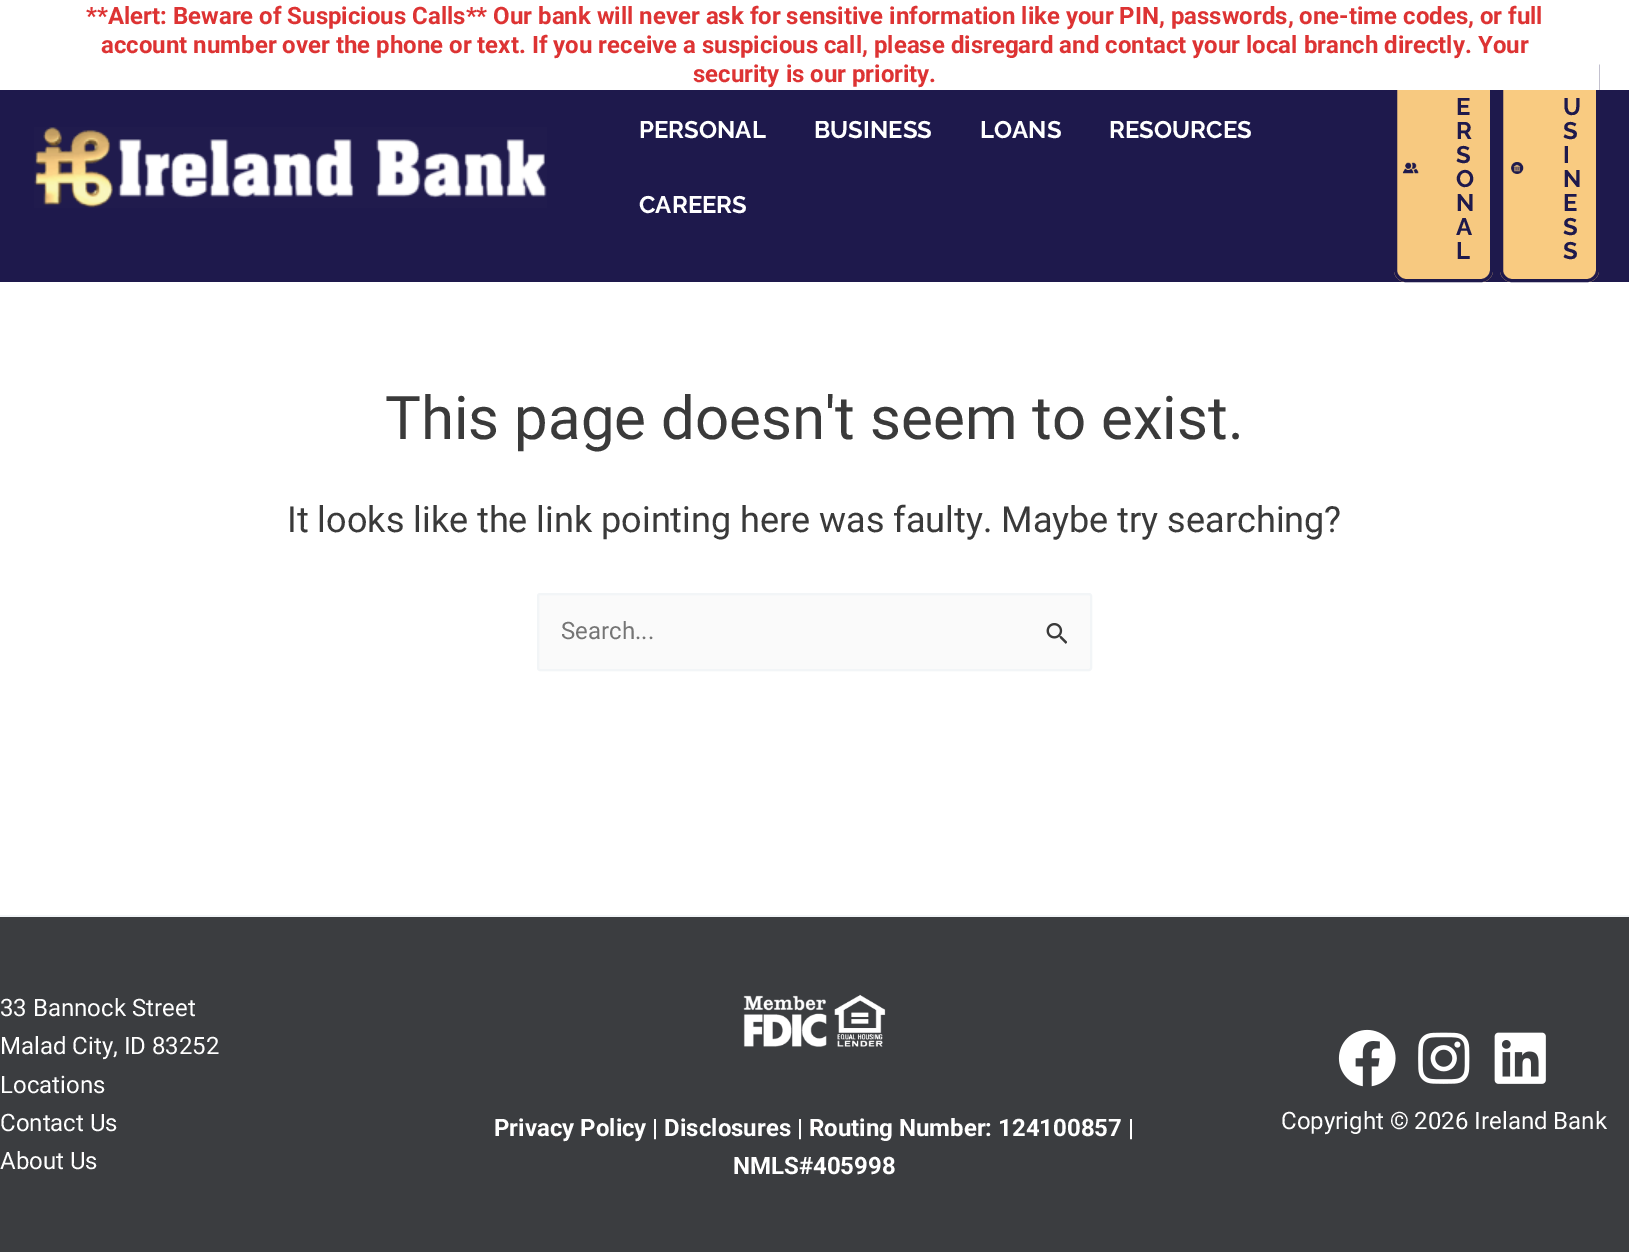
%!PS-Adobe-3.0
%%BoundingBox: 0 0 1629 1252
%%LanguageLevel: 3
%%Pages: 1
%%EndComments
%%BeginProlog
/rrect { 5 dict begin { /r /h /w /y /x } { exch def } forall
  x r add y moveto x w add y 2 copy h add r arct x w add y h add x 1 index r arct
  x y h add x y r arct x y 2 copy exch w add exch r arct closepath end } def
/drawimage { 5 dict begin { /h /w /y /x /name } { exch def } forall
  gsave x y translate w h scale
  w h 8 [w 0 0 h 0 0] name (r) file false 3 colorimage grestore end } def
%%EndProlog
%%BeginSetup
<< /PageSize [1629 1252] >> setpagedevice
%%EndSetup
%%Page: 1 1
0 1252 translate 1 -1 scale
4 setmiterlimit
1 setgray
0 0 1629 1252 rectfill
0.118 0.098 0.298 setrgbcolor
0 90 1629 192 rectfill
0.969 0.788 0.502 setrgbcolor
1394 54 99 228 12 rrect fill
(images/2.raw) 1402 162 17 12 drawimage
0.118 0.098 0.298 setrgbcolor
3 setlinewidth
1395.5 55.5 96 225 10.5 rrect stroke
0.976 0.796 0.506 setrgbcolor
1500 54 99 228 12 rrect fill
(images/3.raw) 1511 162 13 12 drawimage
0.118 0.098 0.298 setrgbcolor
1501.5 55.5 96 225 10.5 rrect stroke
1 setgray
1394 54 205 36 rectfill
(images/1.raw) 34 127 513 81 drawimage
0.98 setgray
538 594 553 76 2 rrect gsave fill grestore
0.949 0.961 0.969 setrgbcolor
2 setlinewidth
stroke
(images/4.raw) 1046 623 21 21 drawimage
0.231 0.239 0.251 setrgbcolor
0 917 1629 335 rectfill
0.949 0.961 0.969 setrgbcolor
0 915 1629 2 rectfill
(images/5.raw) 743 994 143 53 drawimage
(images/6.raw) 1338 1029 58 58 drawimage
(images/7.raw) 1418 1032 52 52 drawimage
(images/8.raw) 1494 1032 52 52 drawimage
/Roboto-Bold [24 0 0 -24 0 0] selectfont
0.867 0.2 0.2 setrgbcolor
86 24 moveto (**Alert: Beware of Suspicious Calls** Our bank will never ask for sensitive information like your PIN, passwords, one-time codes, or full) show
101 53 moveto (account number over the phone or text. If you receive a suspicious call, please disregard and contact your local branch directly. Your) show
693 82 moveto (security is our priority.) show
/Raleway-Bold [24 0 0 -24 0 0] selectfont
1 setgray
639 138 moveto (PERSONAL) show
814 138 moveto (BUSINESS) show
980 138 moveto (LOANS) show
1109 138 moveto (RESOURCES) show
639 213 moveto (CAREERS) show
0.118 0.098 0.298 setrgbcolor
1456 115 moveto (E) show
1456 139 moveto (R) show
1456 163 moveto (S) show
1456 187 moveto (O) show
1456 211 moveto (N) show
1456 235 moveto (A) show
1456 259 moveto (L) show
1563 115 moveto (U) show
1563 139 moveto (S) show
1563 163 moveto (I) show
1563 187 moveto (N) show
1563 211 moveto (E) show
1563 235 moveto (S) show
1563 259 moveto (S) show
/Roboto-Regular [60 0 0 -60 0 0] selectfont
0.227 setgray
385 439 moveto (This page doesn't seem to exist.) show
/Roboto-Regular [36 0 0 -36 0 0] selectfont
287 532 moveto (It looks like the link pointing here was faulty. Maybe try searching?) show
/Roboto-Regular [24 0 0 -24 0 0] selectfont
0.459 setgray
561 639 moveto (Search...) show
1 setgray
0 1016 moveto (33 Bannock Street) show
0 1054 moveto (Malad City, ID 83252) show
0 1093 moveto (Locations) show
0 1131 moveto (Contact Us) show
0 1169 moveto (About Us) show
/Roboto-Bold [24 0 0 -24 0 0] selectfont
494 1136 moveto (Privacy Policy | Disclosures | Routing Number: 124100857 |) show
733 1174 moveto (NMLS#405998) show
/Roboto-Regular [24 0 0 -24 0 0] selectfont
1281 1129 moveto (Copyright © 2026 Ireland Bank) show
showpage
%%EOF
